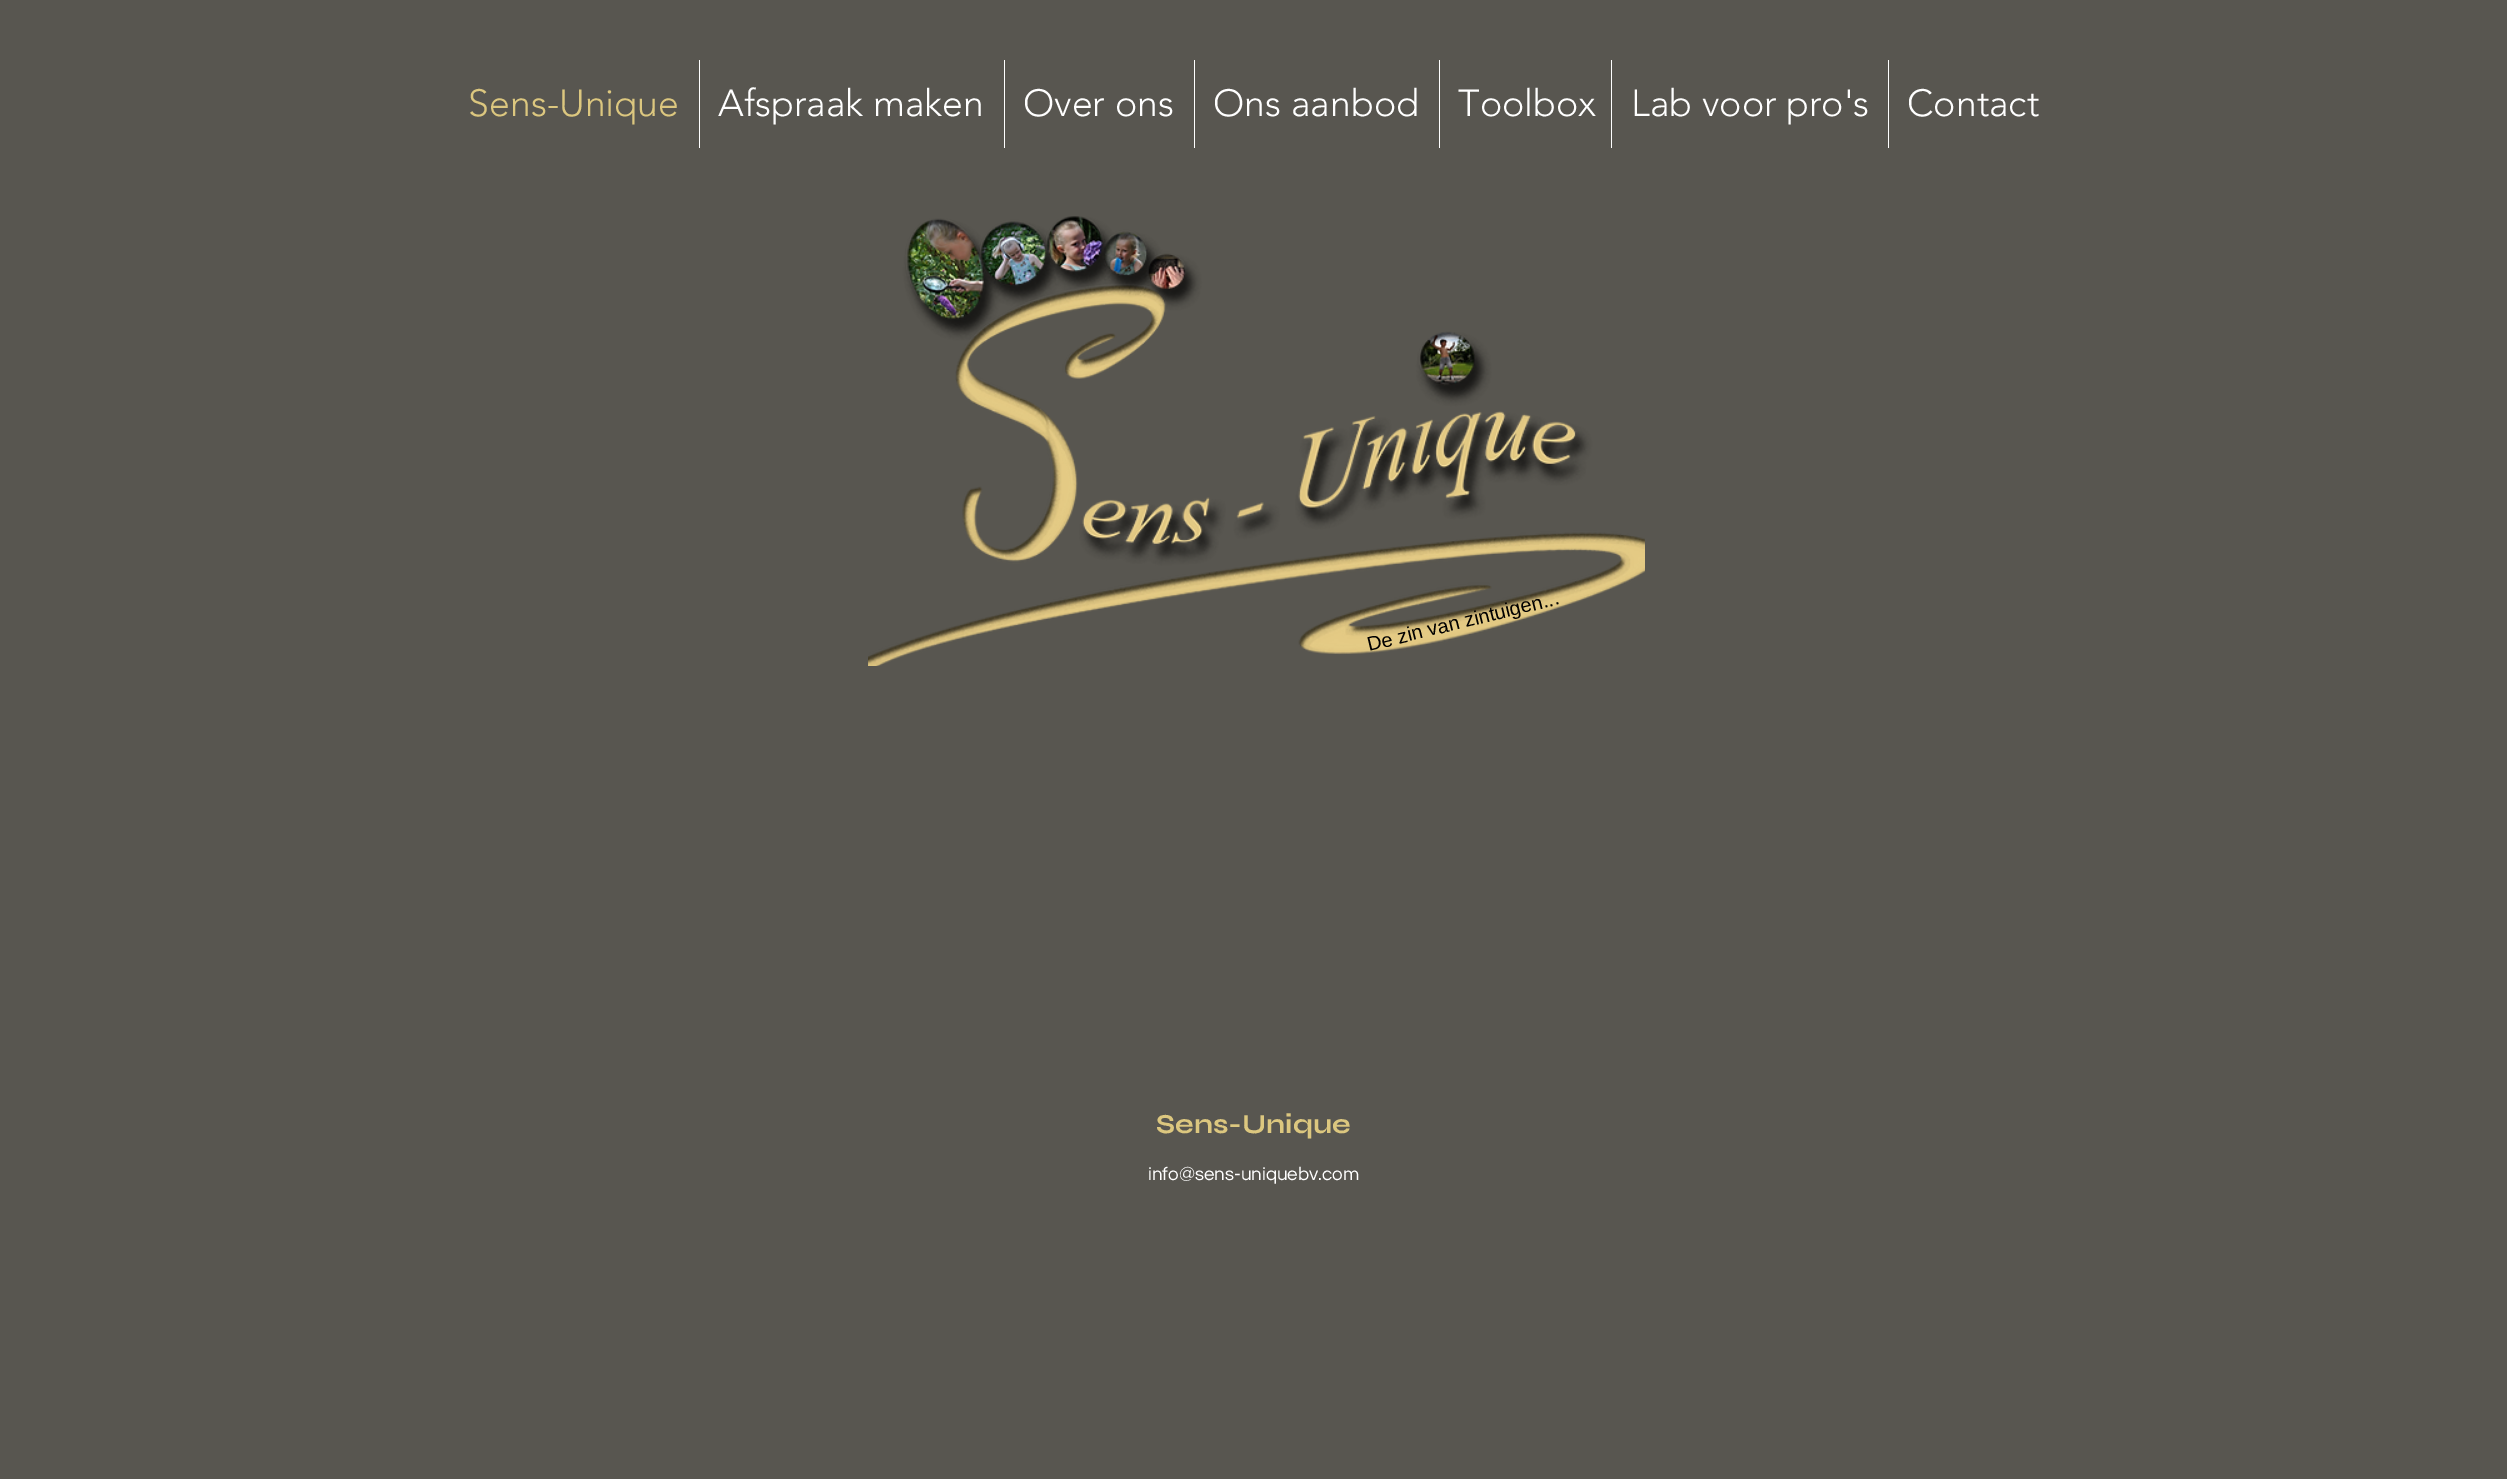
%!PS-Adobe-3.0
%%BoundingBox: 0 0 2507 1479
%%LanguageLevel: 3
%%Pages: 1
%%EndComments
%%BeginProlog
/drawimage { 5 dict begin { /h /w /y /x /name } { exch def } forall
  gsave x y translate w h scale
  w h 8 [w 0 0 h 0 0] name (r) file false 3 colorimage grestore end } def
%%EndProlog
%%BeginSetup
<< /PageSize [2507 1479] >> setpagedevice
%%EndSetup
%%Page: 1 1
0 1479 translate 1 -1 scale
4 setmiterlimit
0.345 0.337 0.314 setrgbcolor
0 0 2507 1479 rectfill
1 setgray
699 60 1 88 rectfill
1004 60 1 88 rectfill
1194 60 1 88 rectfill
1439 60 1 88 rectfill
1611 60 1 88 rectfill
1888 60 1 88 rectfill
(images/1.raw) 868 216 777 450 drawimage
/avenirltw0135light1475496-Light [37.5 0 0 -37.5 0 0] selectfont
0.863 0.78 0.498 setrgbcolor
468 116 moveto (Sens-Unique) show
1 setgray
718 116 moveto (Afspraak maken) show
1023 116 moveto (Over ons) show
1213 116 moveto (Ons aanbod) show
1458 116 moveto (Toolbox) show
1631 116 moveto (Lab voor pro's) show
1907 116 moveto (Contact) show
/LiberationSans-Regular [20 0 0 -20 0 0] selectfont
0 setgray
gsave 1369 651 translate -13.8 rotate 0 0 moveto (De zin van zintuigen...) show grestore
/Syne-Bold [27.5 0 0 -27.5 0 0] selectfont
0.863 0.78 0.498 setrgbcolor
1156 1133 moveto (Sens-Unique) show
/Questrial-Regular [18.75 0 0 -18.75 0 0] selectfont
1 setgray
1148 1180 moveto (info@sens-uniquebv.com) show
showpage
%%EOF
